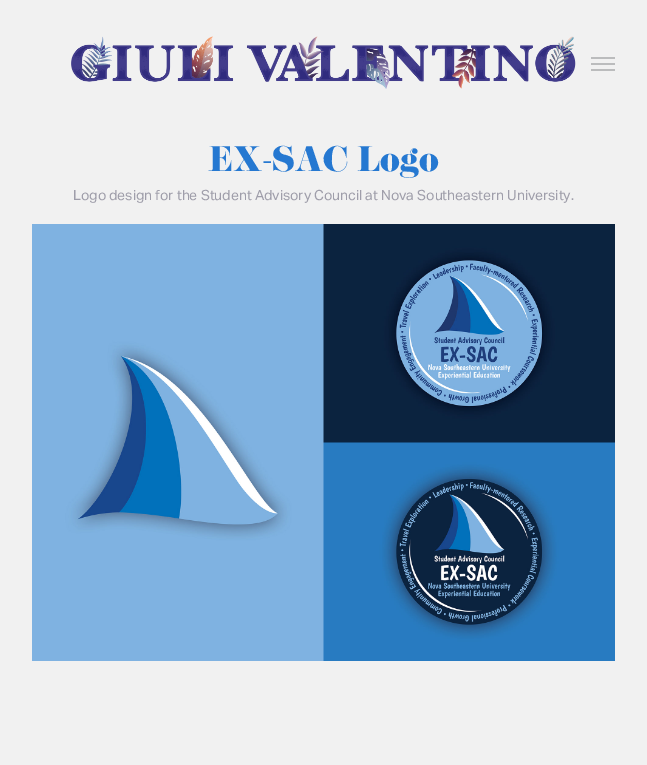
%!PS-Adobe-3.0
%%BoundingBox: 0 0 647 765
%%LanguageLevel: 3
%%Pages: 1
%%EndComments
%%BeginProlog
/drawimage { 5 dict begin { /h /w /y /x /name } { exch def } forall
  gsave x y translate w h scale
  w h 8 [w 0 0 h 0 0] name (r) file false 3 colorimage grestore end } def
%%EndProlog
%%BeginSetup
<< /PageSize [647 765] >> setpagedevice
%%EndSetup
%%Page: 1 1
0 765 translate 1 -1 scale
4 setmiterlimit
0.945 setgray
0 0 647 765 rectfill
(images/1.raw) 71 36 505 53 drawimage
0.733 0.737 0.741 setrgbcolor
591 57 24 2 rectfill
591 63 24 2 rectfill
591 69 24 2 rectfill
(images/2.raw) 32 224 583 437 drawimage
/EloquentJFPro-Regular [31 0 0 -31 0 0] selectfont
0.145 0.471 0.82 setrgbcolor
209 171 moveto (EX-SAC Logo) show
/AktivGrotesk-Regular [14 0 0 -14 0 0] selectfont
0.624 0.62 0.667 setrgbcolor
73 200 moveto (Logo design for the Student Advisory Council at Nova Southeastern University.) show
showpage
%%EOF
